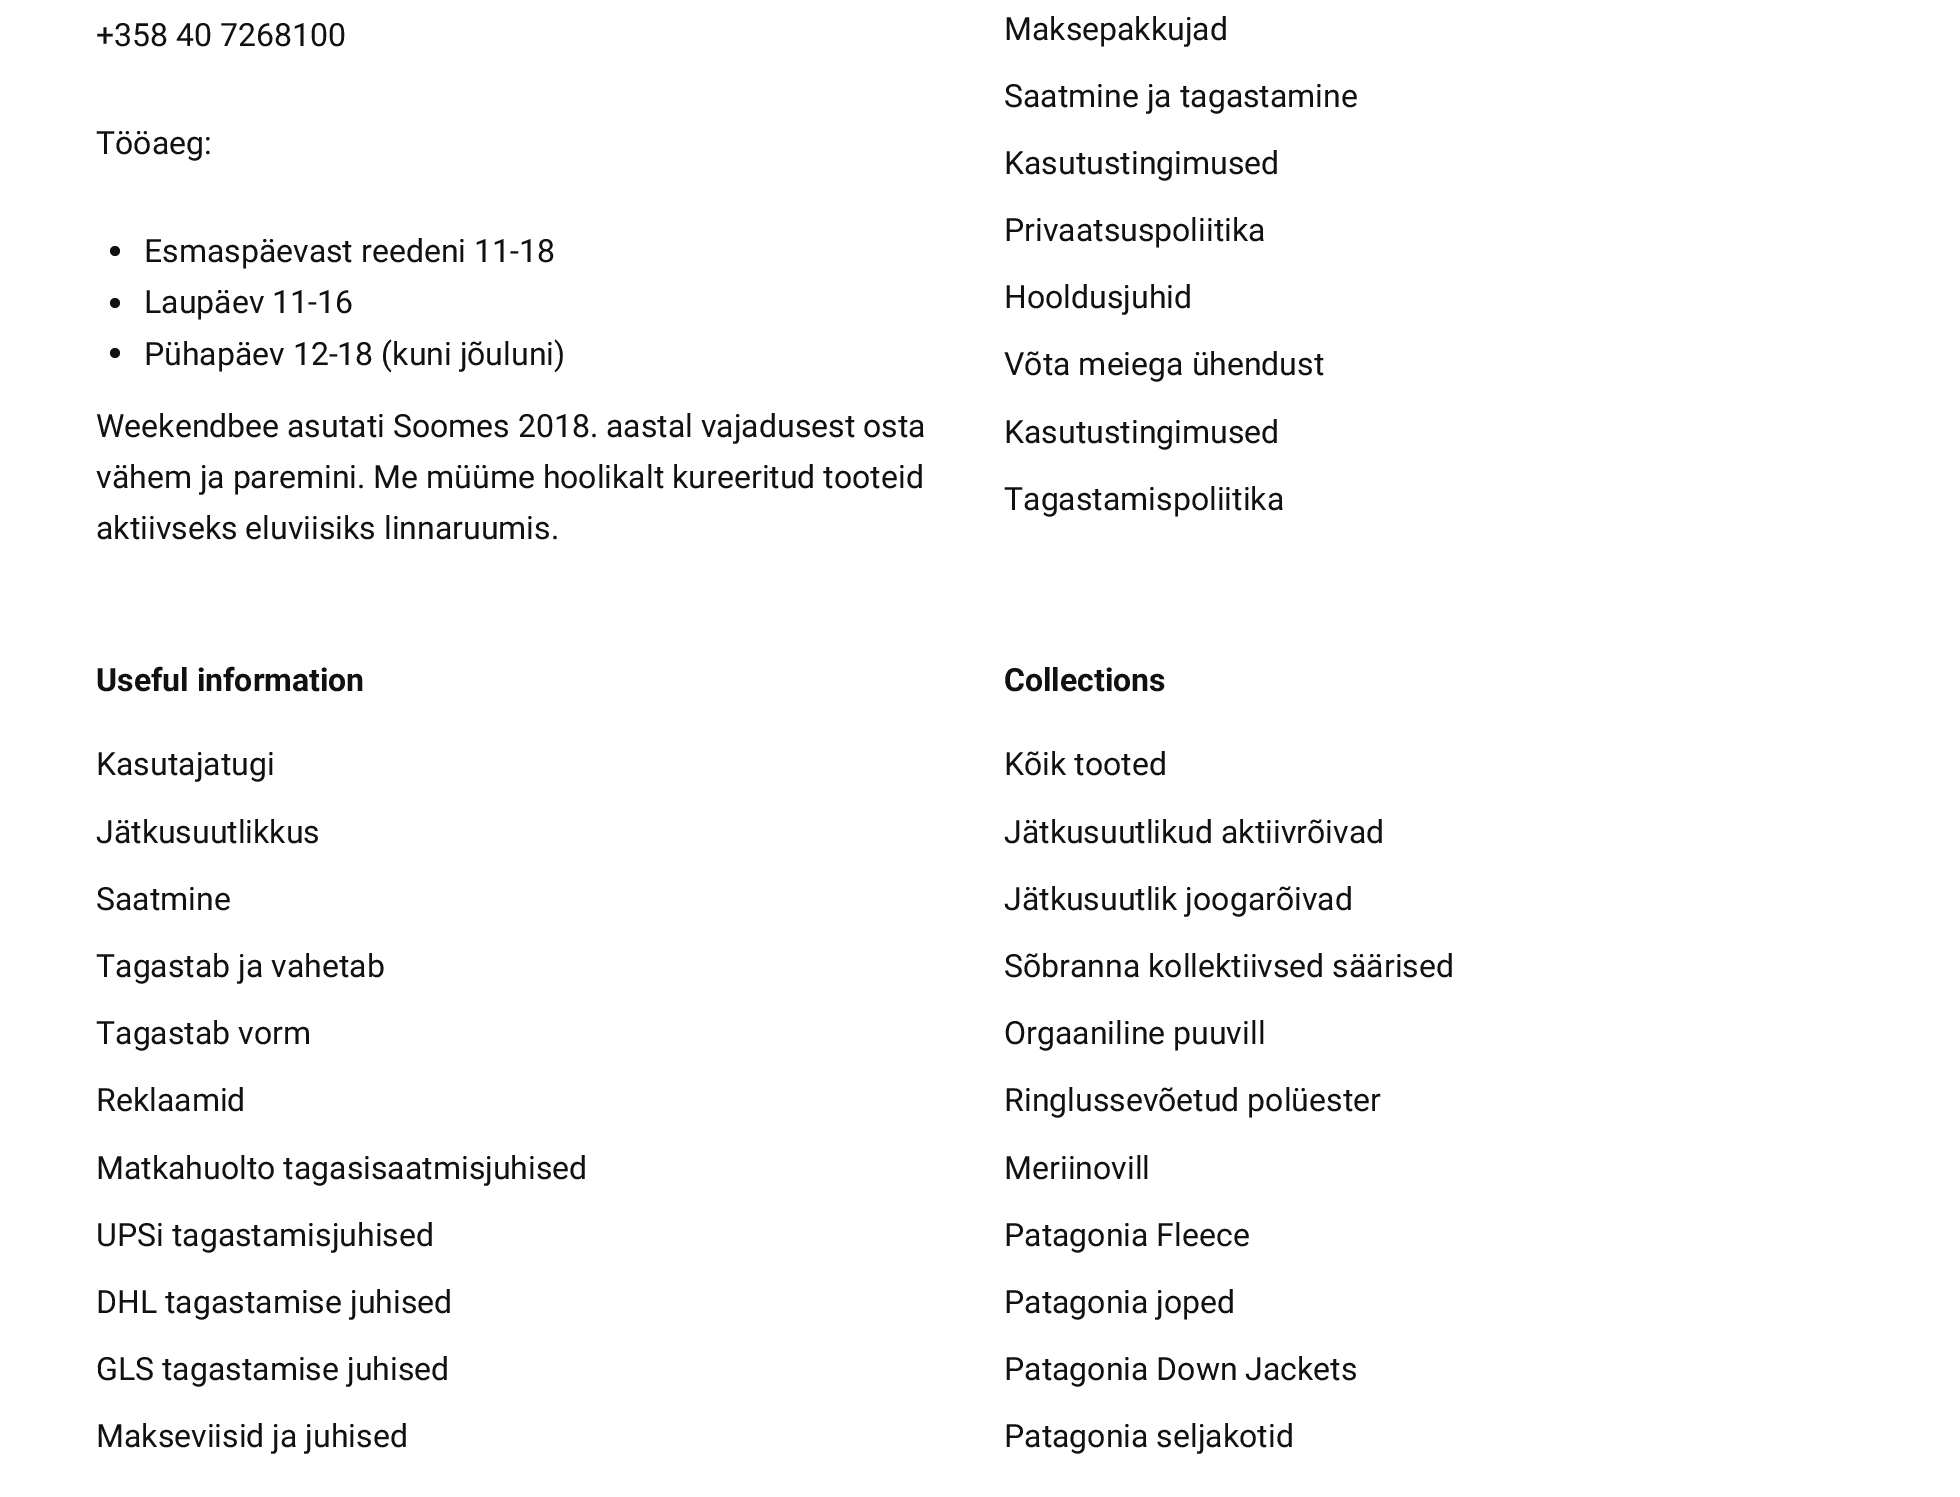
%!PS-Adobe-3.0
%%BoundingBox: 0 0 1960 1497
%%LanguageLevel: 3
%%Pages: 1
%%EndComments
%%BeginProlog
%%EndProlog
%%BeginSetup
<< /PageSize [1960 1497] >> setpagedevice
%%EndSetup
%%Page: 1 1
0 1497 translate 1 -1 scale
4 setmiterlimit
1 setgray
0 0 1960 1497 rectfill
0.067 setgray
newpath 115 251 5 0 360 arc closepath fill
newpath 115 303 5 0 360 arc closepath fill
newpath 115 353 5 0 360 arc closepath fill
/Roboto-Regular [32 0 0 -32 0 0] selectfont
96 46 moveto (+358 40 7268100) show
96 154 moveto (Tööaeg:) show
144 262 moveto (Esmaspäevast reedeni 11-18) show
144 313 moveto (Laupäev 11-16) show
144 365 moveto (Pühapäev 12-18 \(kuni jõuluni\)) show
96 437 moveto (Weekendbee asutati Soomes 2018. aastal vajadusest osta) show
96 488 moveto (vähem ja paremini. Me müüme hoolikalt kureeritud tooteid) show
96 539 moveto (aktiivseks eluviisiks linnaruumis.) show
1004 40 moveto (Maksepakkujad) show
1004 107 moveto (Saatmine ja tagastamine) show
1004 174 moveto (Kasutustingimused) show
1004 241 moveto (Privaatsuspoliitika) show
1004 308 moveto (Hooldusjuhid) show
1004 375 moveto (Võta meiega ühendust) show
1004 443 moveto (Kasutustingimused) show
1004 510 moveto (Tagastamispoliitika) show
/Roboto-Bold [32 0 0 -32 0 0] selectfont
96 691 moveto (Useful information) show
/Roboto-Regular [32 0 0 -32 0 0] selectfont
96 775 moveto (Kasutajatugi) show
96 843 moveto (Jätkusuutlikkus) show
96 910 moveto (Saatmine) show
96 977 moveto (Tagastab ja vahetab) show
96 1044 moveto (Tagastab vorm) show
96 1111 moveto (Reklaamid) show
96 1179 moveto (Matkahuolto tagasisaatmisjuhised) show
96 1246 moveto (UPSi tagastamisjuhised) show
96 1313 moveto (DHL tagastamise juhised) show
96 1380 moveto (GLS tagastamise juhised) show
96 1447 moveto (Makseviisid ja juhised) show
/Roboto-Bold [32 0 0 -32 0 0] selectfont
1004 691 moveto (Collections) show
/Roboto-Regular [32 0 0 -32 0 0] selectfont
1004 775 moveto (Kõik tooted) show
1004 843 moveto (Jätkusuutlikud aktiivrõivad) show
1004 910 moveto (Jätkusuutlik joogarõivad) show
1004 977 moveto (Sõbranna kollektiivsed säärised) show
1004 1044 moveto (Orgaaniline puuvill) show
1004 1111 moveto (Ringlussevõetud polüester) show
1004 1179 moveto (Meriinovill) show
1004 1246 moveto (Patagonia Fleece) show
1004 1313 moveto (Patagonia joped) show
1004 1380 moveto (Patagonia Down Jackets) show
1004 1447 moveto (Patagonia seljakotid) show
showpage
%%EOF
